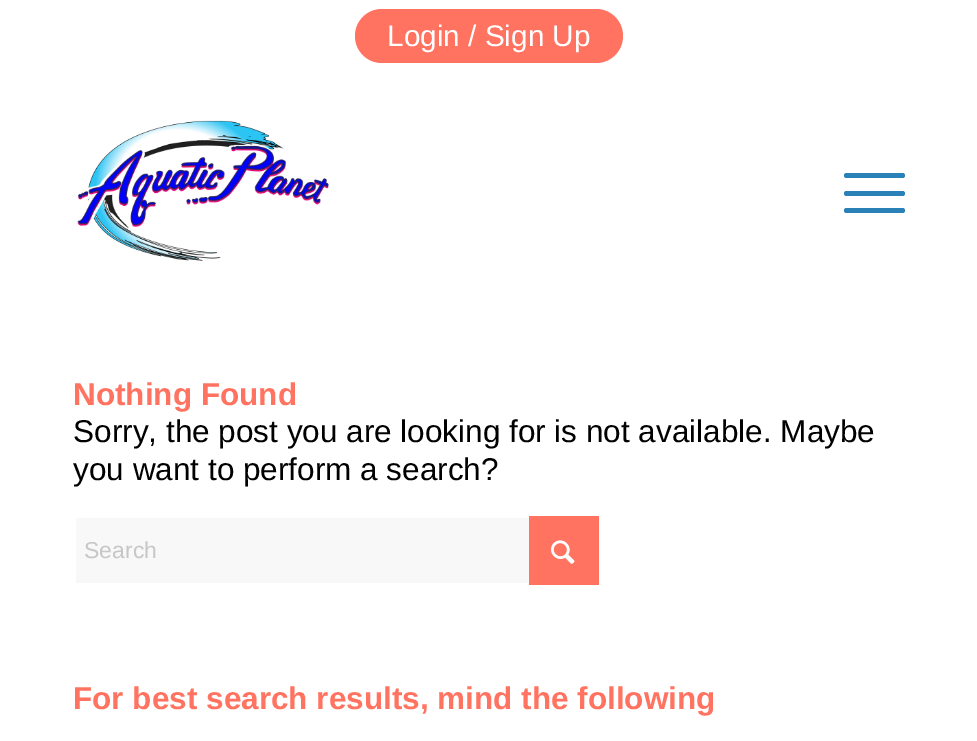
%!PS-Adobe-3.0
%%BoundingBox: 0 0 977 741
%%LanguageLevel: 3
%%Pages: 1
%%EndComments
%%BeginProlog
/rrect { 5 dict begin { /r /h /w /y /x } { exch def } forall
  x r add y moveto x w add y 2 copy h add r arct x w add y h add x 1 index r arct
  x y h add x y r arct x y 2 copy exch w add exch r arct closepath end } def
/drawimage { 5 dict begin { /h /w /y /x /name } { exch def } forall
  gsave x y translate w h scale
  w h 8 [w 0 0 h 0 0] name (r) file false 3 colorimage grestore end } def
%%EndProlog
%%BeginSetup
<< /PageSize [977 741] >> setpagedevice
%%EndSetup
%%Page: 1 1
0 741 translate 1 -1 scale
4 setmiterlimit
1 setgray
0 0 977 741 rectfill
1 0.451 0.376 setrgbcolor
355 9 268 54 27 rrect fill
(images/1.raw) 77 120 252 141 drawimage
0.161 0.506 0.718 setrgbcolor
844 191 61 5 2.5 rrect fill
844 173 61 5 2.5 rrect fill
844 208 61 5 2.5 rrect fill
1 0.451 0.376 setrgbcolor
529 516 70 69 rectfill
0.973 setgray
76 518 453 65 rectfill
(images/2.raw) 551 540 24 24 drawimage
/LiberationSans-Regular [29.75 0 0 -29.75 0 0] selectfont
1 setgray
387 46 moveto (Login / Sign Up) show
/LiberationSans-Bold [31.5 0 0 -31.5 0 0] selectfont
1 0.451 0.376 setrgbcolor
73 405 moveto (Nothing Found) show
/LiberationSans-Regular [31.5 0 0 -31.5 0 0] selectfont
0 setgray
73 442 moveto (Sorry, the post you are looking for is not available. Maybe) show
73 480 moveto (you want to perform a search?) show
/LiberationSans-Regular [23 0 0 -23 0 0] selectfont
0.78 setgray
84 558 moveto (Search) show
/LiberationSans-Bold [31.5 0 0 -31.5 0 0] selectfont
1 0.451 0.376 setrgbcolor
73 709 moveto (For best search results, mind the following) show
showpage
%%EOF
